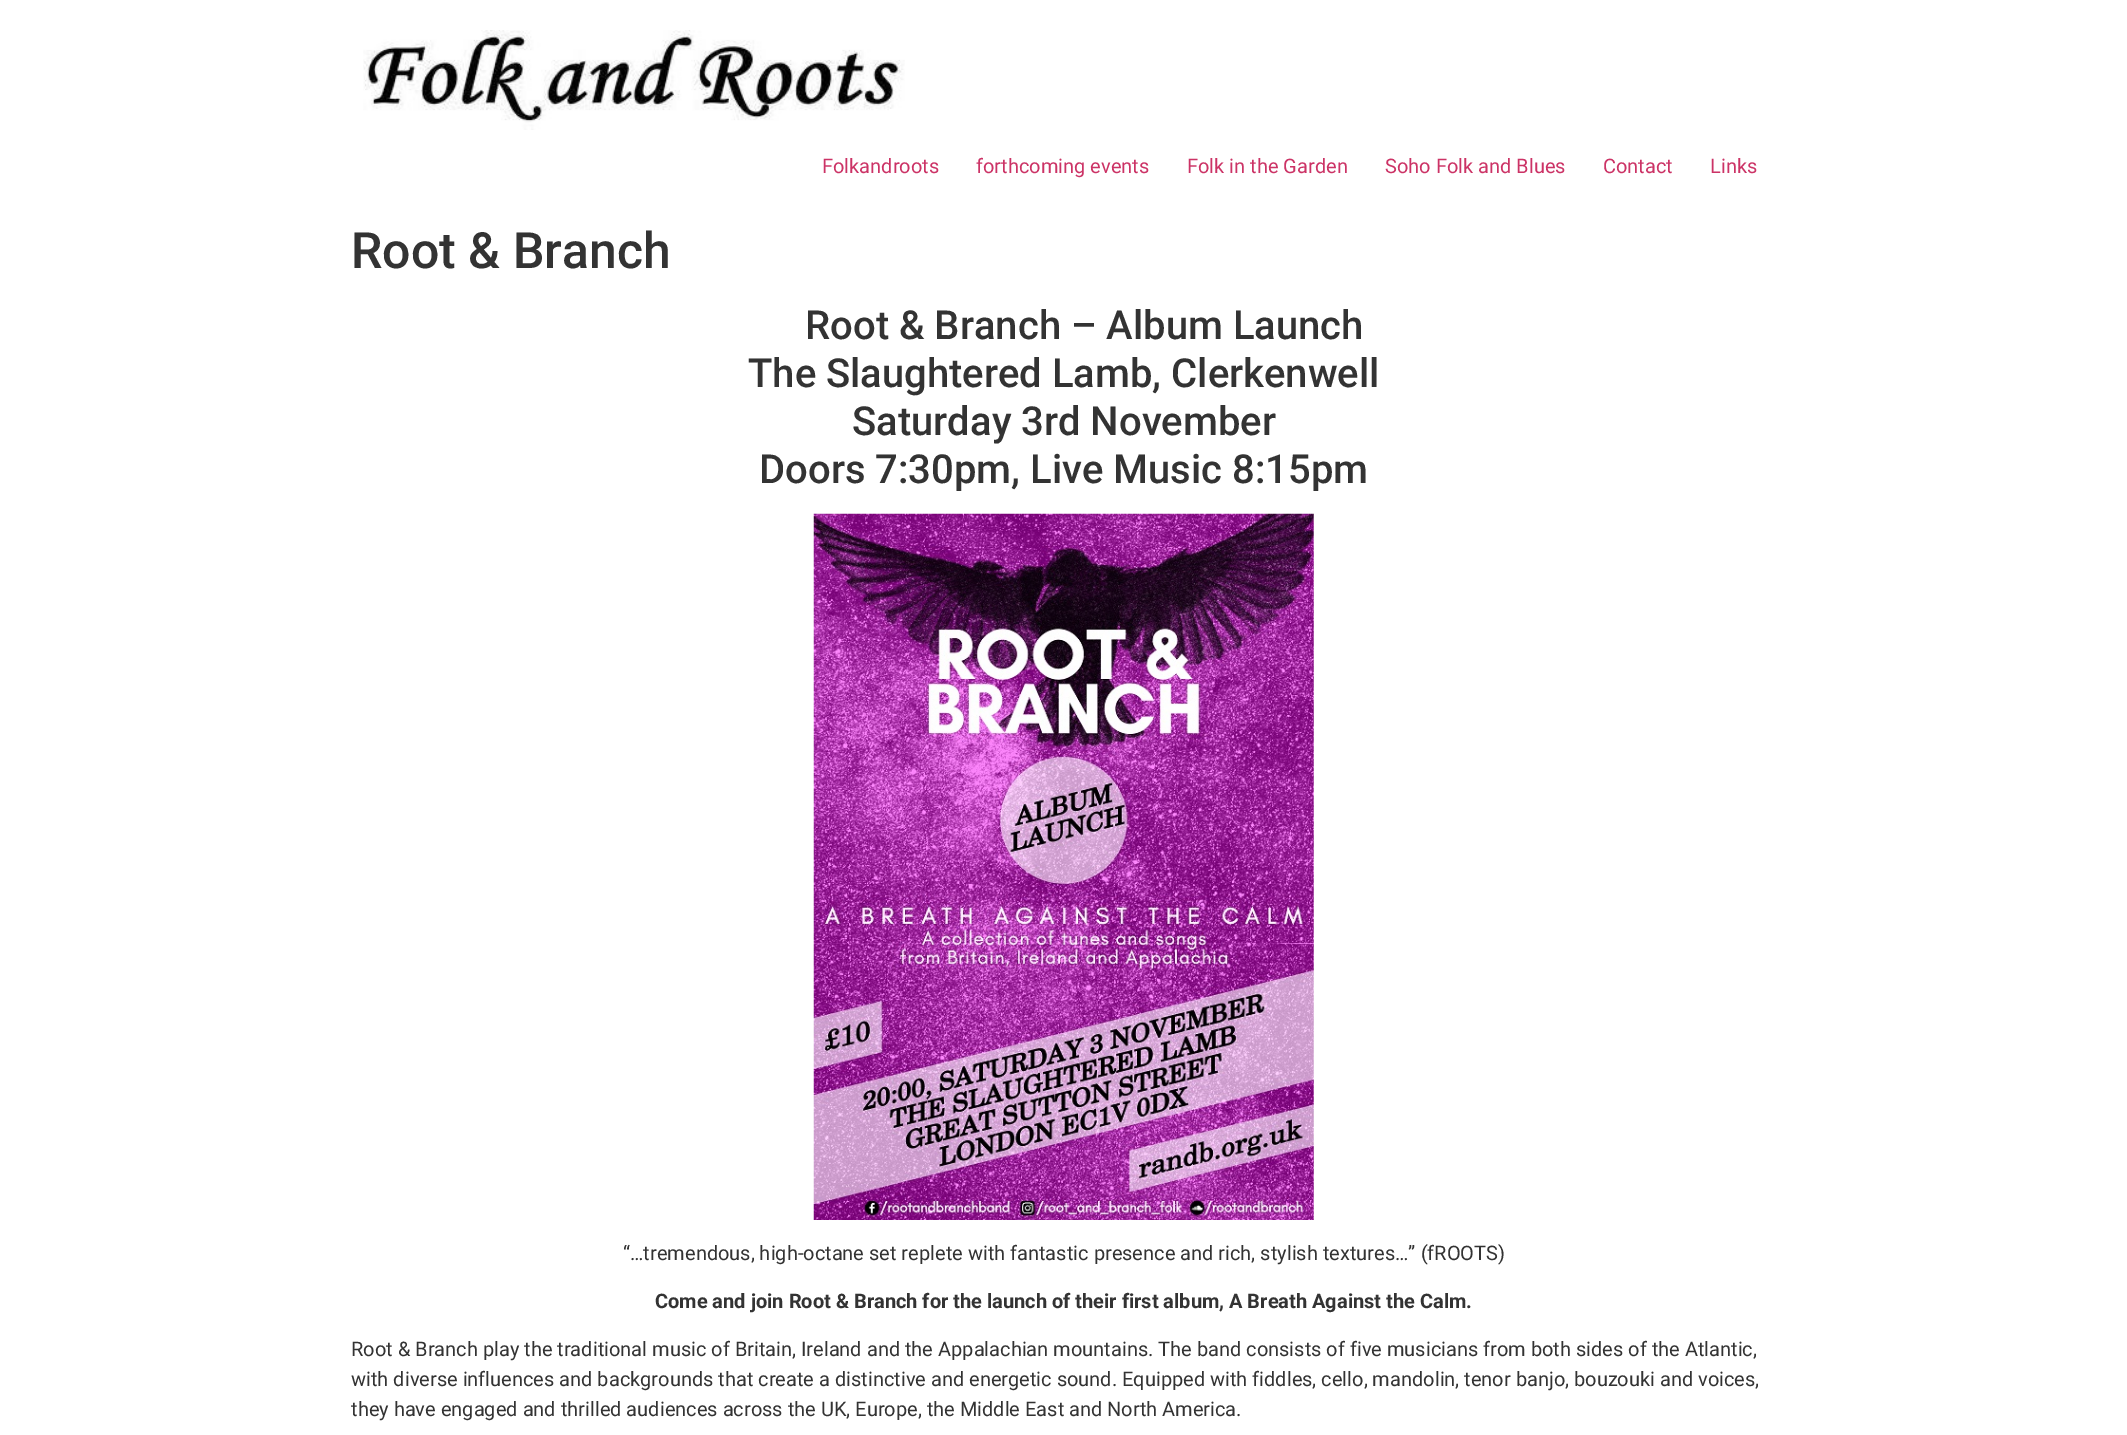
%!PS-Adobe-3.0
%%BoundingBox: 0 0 2127 1435
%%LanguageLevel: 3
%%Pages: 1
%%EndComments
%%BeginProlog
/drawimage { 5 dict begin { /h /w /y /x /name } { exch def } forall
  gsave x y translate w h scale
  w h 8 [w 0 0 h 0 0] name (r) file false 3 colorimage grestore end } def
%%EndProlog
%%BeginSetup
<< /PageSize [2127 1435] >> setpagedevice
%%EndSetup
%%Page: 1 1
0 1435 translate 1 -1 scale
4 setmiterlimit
1 setgray
0 0 2127 1435 rectfill
(images/1.raw) 363 30 542 100 drawimage
(images/2.raw) 813 513 501 707 drawimage
/Roboto-Regular [20 0 0 -20 0 0] selectfont
0.8 0.2 0.4 setrgbcolor
822 173 moveto (Folkandroots) show
976 173 moveto (forthcoming events) show
1187 173 moveto (Folk in the Garden) show
1385 173 moveto (Soho Folk and Blues) show
1603 173 moveto (Contact) show
1710 173 moveto (Links) show
/Roboto-Medium [50 0 0 -50 0 0] selectfont
0.2 setgray
351 268 moveto (Root & Branch) show
/Roboto-Medium [40 0 0 -40 0 0] selectfont
805 339 moveto (Root & Branch – Album Launch) show
748 387 moveto (The Slaughtered Lamb, Clerkenwell) show
852 435 moveto (Saturday 3rd November) show
759 483 moveto (Doors 7:30pm, Live Music 8:15pm) show
/Roboto-Regular [20 0 0 -20 0 0] selectfont
623 1260 moveto (“…tremendous, high-octane set replete with fantastic presence and rich, stylish textures…” \(fROOTS\)) show
/Roboto-Bold [20 0 0 -20 0 0] selectfont
655 1308 moveto (Come and join Root & Branch for the launch of their first album, A Breath Against the Calm.) show
/Roboto-Regular [20 0 0 -20 0 0] selectfont
351 1356 moveto (Root & Branch play the traditional music of Britain, Ireland and the Appalachian mountains. The band consists of five musicians from both sides of the Atlantic,) show
351 1386 moveto (with diverse influences and backgrounds that create a distinctive and energetic sound. Equipped with fiddles, cello, mandolin, tenor banjo, bouzouki and voices,) show
351 1416 moveto (they have engaged and thrilled audiences across the UK, Europe, the Middle East and North America.) show
showpage
%%EOF
